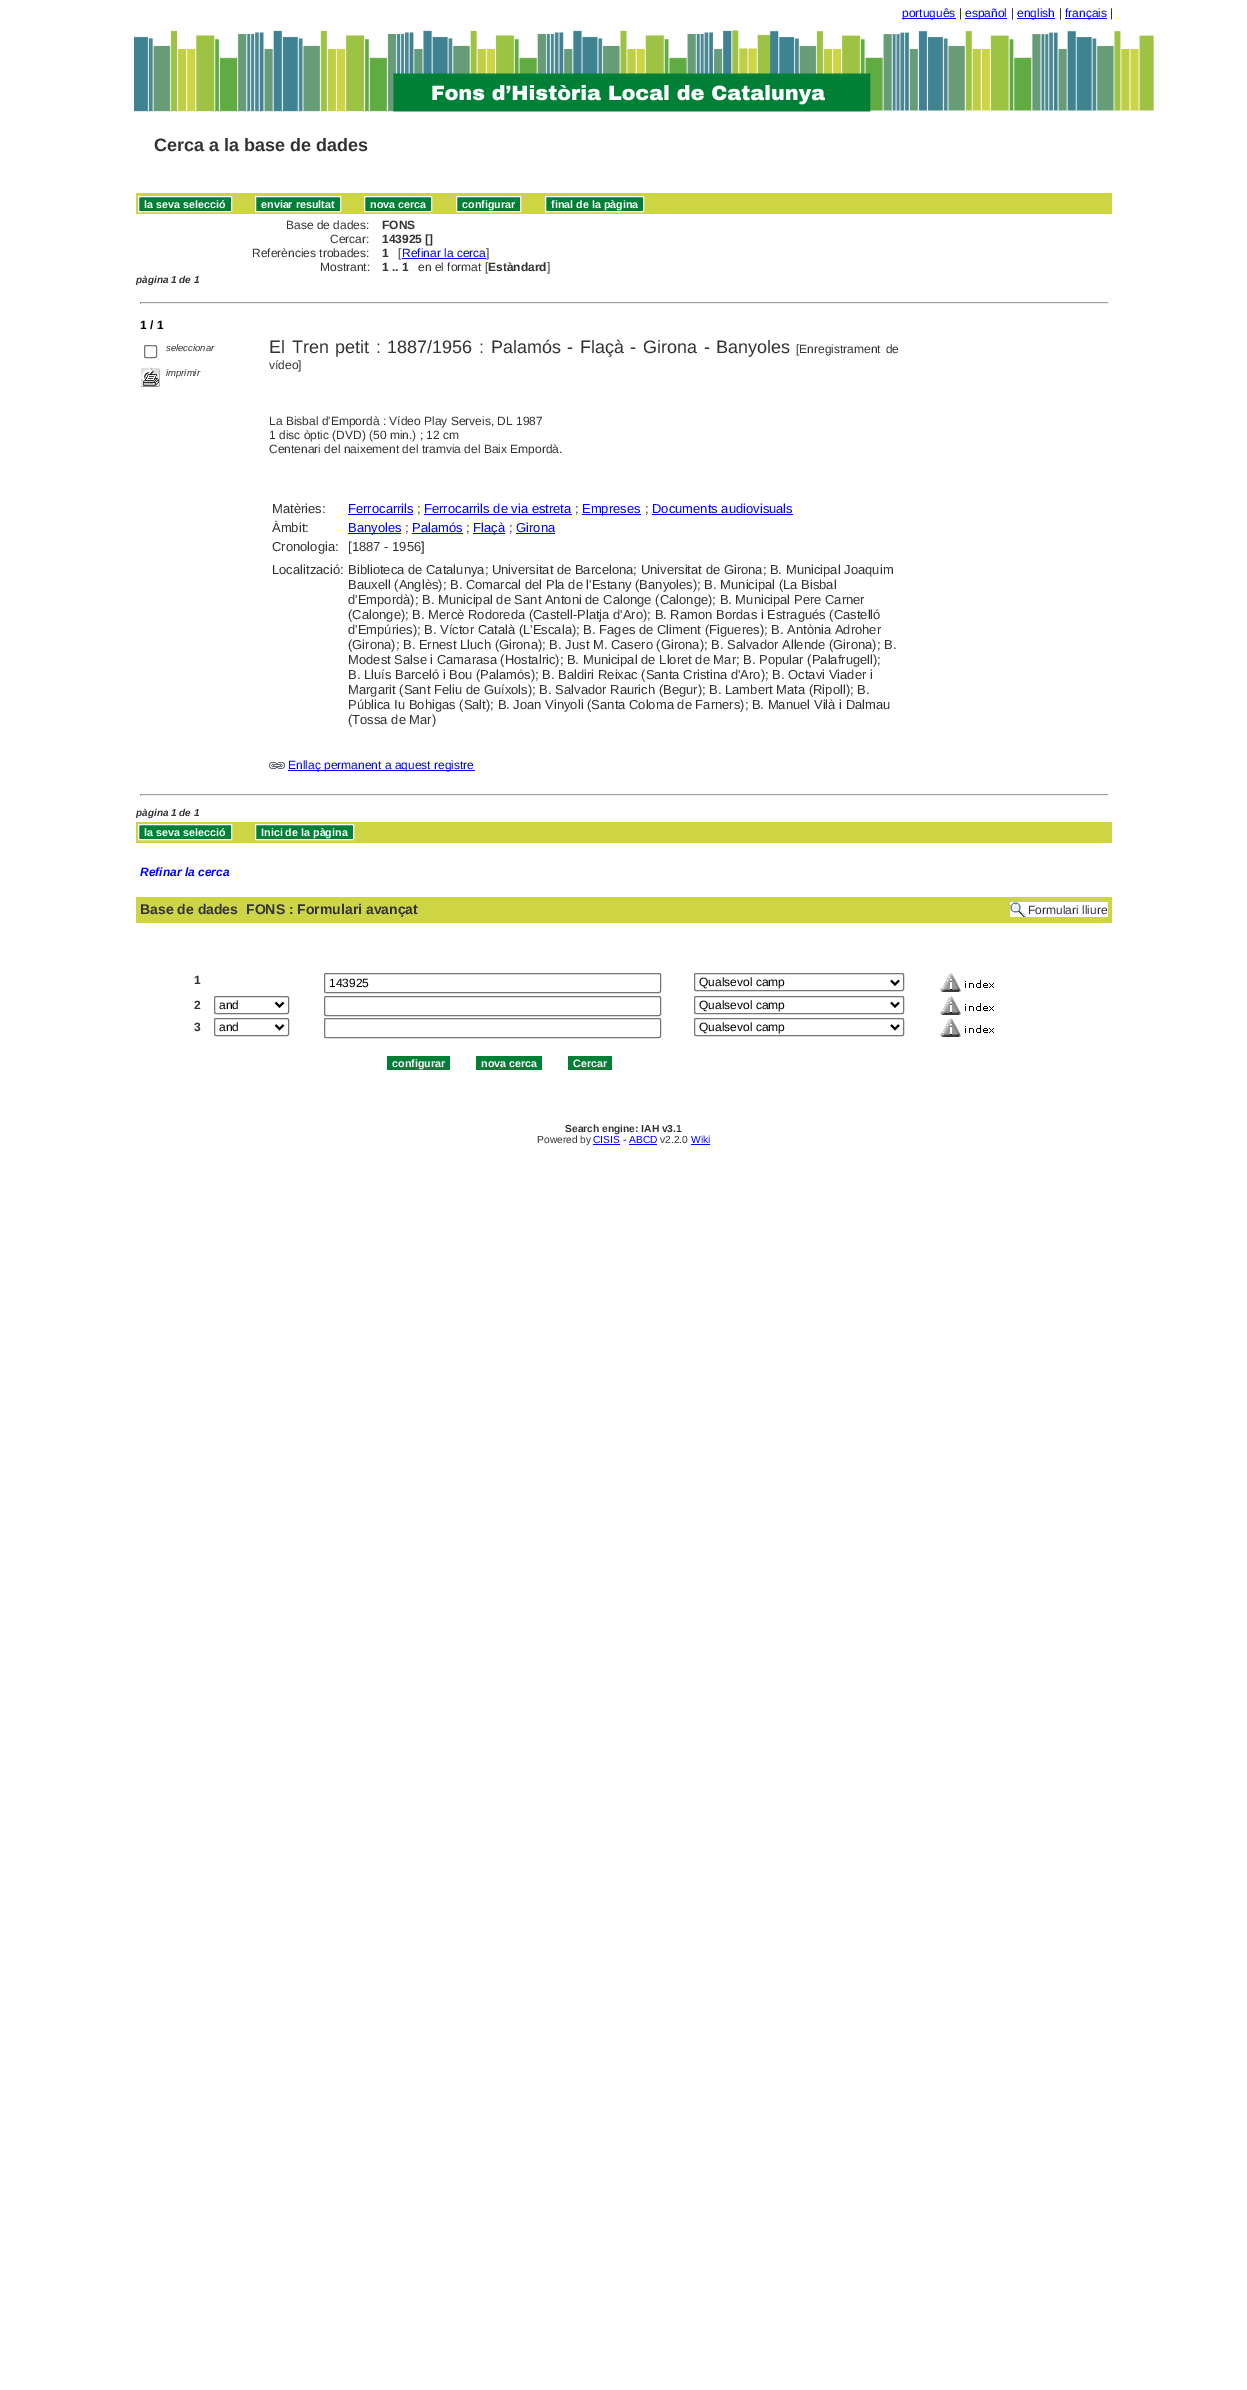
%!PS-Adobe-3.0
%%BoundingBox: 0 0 1247 2390
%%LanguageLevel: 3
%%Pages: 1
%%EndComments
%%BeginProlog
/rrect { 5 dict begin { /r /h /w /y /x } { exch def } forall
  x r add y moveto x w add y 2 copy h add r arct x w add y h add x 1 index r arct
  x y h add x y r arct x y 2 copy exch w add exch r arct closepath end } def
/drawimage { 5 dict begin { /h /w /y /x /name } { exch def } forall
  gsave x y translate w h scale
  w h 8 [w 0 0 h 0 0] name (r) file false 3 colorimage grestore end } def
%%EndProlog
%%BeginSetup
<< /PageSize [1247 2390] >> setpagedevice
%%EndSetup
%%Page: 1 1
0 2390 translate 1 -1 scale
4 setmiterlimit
1 setgray
0 0 1247 2390 rectfill
0 0 1 setrgbcolor
902 18 54 1 rectfill
965 18 42 1 rectfill
1017 18 38 1 rectfill
1065 18 42 1 rectfill
(images/1.raw) 134 30 1020 82 drawimage
0.804 0.835 0.271 setrgbcolor
136 193 976 21 rectfill
0 0.502 0.216 setrgbcolor
newpath 138.5 196.5 moveto 231.5 196.5 lineto 231.5 211.5 lineto 138.5 211.5 lineto closepath gsave fill grestore
1 setgray
stroke
0 0.502 0.216 setrgbcolor
newpath 255.5 196.5 moveto 340.5 196.5 lineto 340.5 211.5 lineto 255.5 211.5 lineto closepath gsave fill grestore
1 setgray
stroke
0 0.502 0.216 setrgbcolor
newpath 364.5 196.5 moveto 431.5 196.5 lineto 431.5 211.5 lineto 364.5 211.5 lineto closepath gsave fill grestore
1 setgray
stroke
0 0.502 0.216 setrgbcolor
newpath 456.5 196.5 moveto 520.5 196.5 lineto 520.5 211.5 lineto 456.5 211.5 lineto closepath gsave fill grestore
1 setgray
stroke
0 0.502 0.216 setrgbcolor
newpath 545.5 196.5 moveto 643.5 196.5 lineto 643.5 211.5 lineto 545.5 211.5 lineto closepath gsave fill grestore
1 setgray
stroke
0 0 1 setrgbcolor
402 258 84 1 rectfill
0.624 setgray
140 302 969 1 rectfill
0.933 setgray
1108 302 1 2 rectfill
140 303 969 1 rectfill
0.624 setgray
140 302 1 2 rectfill
0.463 setgray
144.5 345.5 12 12 1.5 rrect stroke
(images/2.raw) 140 367 20 20 drawimage
0 0 1 setrgbcolor
348 514 65 1 rectfill
424 514 148 1 rectfill
582 514 59 1 rectfill
652 514 141 1 rectfill
348 533 53 1 rectfill
412 533 51 1 rectfill
473 533 32 1 rectfill
516 533 39 1 rectfill
(images/3.raw) 269 762 16 7 drawimage
288 770 187 1 rectfill
0.624 setgray
140 794 969 1 rectfill
0.933 setgray
1108 794 1 2 rectfill
140 795 969 1 rectfill
0.624 setgray
140 794 1 2 rectfill
0.804 0.835 0.271 setrgbcolor
136 822 976 21 rectfill
0 0.502 0.216 setrgbcolor
newpath 138.5 824.5 moveto 231.5 824.5 lineto 231.5 839.5 lineto 138.5 839.5 lineto closepath gsave fill grestore
1 setgray
stroke
0 0.502 0.216 setrgbcolor
newpath 255.5 824.5 moveto 353.5 824.5 lineto 353.5 839.5 lineto 255.5 839.5 lineto closepath gsave fill grestore
1 setgray
stroke
0.804 0.835 0.271 setrgbcolor
136 897 976 26 rectfill
1 setgray
1010 902 98 15 rectfill
(images/4.raw) 1010 902 16 15 drawimage
0.463 setgray
324.5 973.5 336 19 1.5 rrect stroke
694.5 973.5 209 17 1.5 rrect stroke
0 setgray
2 setlinewidth
newpath 891 980.5 moveto 895 984.5 lineto 899 980.5 lineto stroke
(images/5.raw) 940 973 54 19 drawimage
0.463 setgray
1 setlinewidth
214.5 996.5 74 17 1.5 rrect stroke
0 setgray
2 setlinewidth
newpath 275.5 1002.5 moveto 279.5 1006.5 lineto 283.5 1002.5 lineto stroke
0.463 setgray
1 setlinewidth
324.5 996.5 336 19 1.5 rrect stroke
694.5 996.5 209 17 1.5 rrect stroke
0 setgray
2 setlinewidth
newpath 891 1002.5 moveto 895 1006.5 lineto 899 1002.5 lineto stroke
(images/5.raw) 940 996 54 19 drawimage
0.463 setgray
1 setlinewidth
214.5 1018.5 74 17 1.5 rrect stroke
0 setgray
2 setlinewidth
newpath 275.5 1025 moveto 279.5 1029 lineto 283.5 1025 lineto stroke
0.463 setgray
1 setlinewidth
324.5 1018.5 336 19 1.5 rrect stroke
694.5 1018.5 209 17 1.5 rrect stroke
0 setgray
2 setlinewidth
newpath 891 1025 moveto 895 1029 lineto 899 1025 lineto stroke
(images/5.raw) 940 1018 54 19 drawimage
0 0.502 0.216 setrgbcolor
387 1056 63 14 rectfill
476 1056 66 14 rectfill
568 1056 44 14 rectfill
0 0 1 setrgbcolor
593 1144 27 1 rectfill
629 1144 28 1 rectfill
691 1144 19 1 rectfill
/LiberationSans-Regular [12 0 0 -12 0 0] selectfont
902 17 moveto (português) show
0.2 setgray
959 17 moveto (|) show
0 0 1 setrgbcolor
965 17 moveto (español) show
0.2 setgray
1011 17 moveto (|) show
0 0 1 setrgbcolor
1017 17 moveto (english) show
0.2 setgray
1059 17 moveto (|) show
0 0 1 setrgbcolor
1065 17 moveto (français) show
0.2 setgray
1110 17 moveto (|) show
/LiberationSans-Bold [18 0 0 -18 0 0] selectfont
154 151 moveto (Cerca a la base de dades) show
/LiberationSans-Bold [10.75 0 0 -10.75 0 0] selectfont
1 setgray
144 208 moveto (la seva selecció) show
261 208 moveto (enviar resultat) show
370 208 moveto (nova cerca) show
462 208 moveto (configurar) show
551 208 moveto (final de la pàgina) show
/LiberationSans-Regular [12 0 0 -12 0 0] selectfont
0.2 setgray
286 229 moveto (Base de dades:) show
/LiberationSans-Bold [12 0 0 -12 0 0] selectfont
382 229 moveto (FONS) show
/LiberationSans-Regular [12 0 0 -12 0 0] selectfont
330 243 moveto (Cercar:) show
/LiberationSans-Bold [12 0 0 -12 0 0] selectfont
382 243 moveto (143925 []) show
/LiberationSans-Regular [12 0 0 -12 0 0] selectfont
252 257 moveto (Referències trobades:) show
/LiberationSans-Bold [12 0 0 -12 0 0] selectfont
382 257 moveto (1) show
/LiberationSans-Regular [12 0 0 -12 0 0] selectfont
398 257 moveto ([) show
0 0 1 setrgbcolor
402 257 moveto (Refinar la cerca) show
0.2 setgray
486 257 moveto (]) show
320 271 moveto (Mostrant:) show
/LiberationSans-Bold [12 0 0 -12 0 0] selectfont
382 271 moveto (1 .. 1) show
/LiberationSans-Regular [12 0 0 -12 0 0] selectfont
418 271 moveto (en el format [) show
/LiberationSans-Bold [12 0 0 -12 0 0] selectfont
488 271 moveto (Estàndard) show
/LiberationSans-Regular [12 0 0 -12 0 0] selectfont
547 271 moveto (]) show
/LiberationSans-BoldItalic [10 0 0 -10 0 0] selectfont
136 283 moveto (pàgina 1 de 1) show
/LiberationSans-Bold [12 0 0 -12 0 0] selectfont
0 setgray
140 329 moveto (1 / 1) show
/LiberationSans-Italic [9.5 0 0 -9.5 0 0] selectfont
0.2 setgray
166 351 moveto (seleccionar) show
166 376 moveto (imprimir) show
/LiberationSans-Regular [18 0 0 -18 0 0] selectfont
269 353 moveto 1.6 0 32 (El Tren petit : 1887/1956 : Palamós - Flaçà - Girona - Banyoles) widthshow
/LiberationSans-Regular [12 0 0 -12 0 0] selectfont
796 353 moveto 1.6 0 32 ([Enregistrament de) widthshow
269 369 moveto (vídeo]) show
269 425 moveto (La Bisbal d'Empordà : Vídeo Play Serveis, DL 1987) show
269 439 moveto (1 disc òptic \(DVD\) \(50 min.\) ; 12 cm) show
269 453 moveto (Centenari del naixement del tramvia del Baix Empordà.) show
/LiberationSans-Regular [13 0 0 -13 0 0] selectfont
272 513 moveto (Matèries:) show
0 0 1 setrgbcolor
348 513 moveto (Ferrocarrils) show
0.2 setgray
417 513 moveto (;) show
0 0 1 setrgbcolor
424 513 moveto (Ferrocarrils de via estreta) show
0.2 setgray
575 513 moveto (;) show
0 0 1 setrgbcolor
582 513 moveto (Empreses) show
0.2 setgray
645 513 moveto (;) show
0 0 1 setrgbcolor
652 513 moveto (Documents audiovisuals) show
0.2 setgray
272 532 moveto (Àmbit:) show
0 0 1 setrgbcolor
348 532 moveto (Banyoles) show
0.2 setgray
405 532 moveto (;) show
0 0 1 setrgbcolor
412 532 moveto (Palamós) show
0.2 setgray
466 532 moveto (;) show
0 0 1 setrgbcolor
473 532 moveto (Flaçà) show
0.2 setgray
509 532 moveto (;) show
0 0 1 setrgbcolor
516 532 moveto (Girona) show
0.2 setgray
272 551 moveto (Cronologia:) show
348 551 moveto ([1887 - 1956]) show
272 574 moveto (Localització:) show
348 574 moveto (Biblioteca de Catalunya; Universitat de Barcelona; Universitat de Girona; B. Municipal Joaquim) show
348 589 moveto (Bauxell \(Anglès\); B. Comarcal del Pla de l'Estany \(Banyoles\); B. Municipal \(La Bisbal) show
348 604 moveto (d'Empordà\); B. Municipal de Sant Antoni de Calonge \(Calonge\); B. Municipal Pere Carner) show
348 619 moveto (\(Calonge\); B. Mercè Rodoreda \(Castell-Platja d'Aro\); B. Ramon Bordas i Estragués \(Castelló) show
348 634 moveto (d'Empúries\); B. Víctor Català \(L'Escala\); B. Fages de Climent \(Figueres\); B. Antònia Adroher) show
348 649 moveto (\(Girona\); B. Ernest Lluch \(Girona\); B. Just M. Casero \(Girona\); B. Salvador Allende \(Girona\); B.) show
348 664 moveto (Modest Salse i Camarasa \(Hostalric\); B. Municipal de Lloret de Mar; B. Popular \(Palafrugell\);) show
348 679 moveto (B. Lluís Barceló i Bou \(Palamós\); B. Baldiri Reixac \(Santa Cristina d'Aro\); B. Octavi Viader i) show
348 694 moveto (Margarit \(Sant Feliu de Guíxols\); B. Salvador Raurich \(Begur\); B. Lambert Mata \(Ripoll\); B.) show
348 709 moveto (Pública Iu Bohigas \(Salt\); B. Joan Vinyoli \(Santa Coloma de Farners\); B. Manuel Vilà i Dalmau) show
348 724 moveto (\(Tossa de Mar\)) show
/LiberationSans-Regular [12 0 0 -12 0 0] selectfont
0 0 1 setrgbcolor
288 769 moveto (Enllaç permanent a aquest registre) show
/LiberationSans-BoldItalic [10 0 0 -10 0 0] selectfont
0.2 setgray
136 816 moveto (pàgina 1 de 1) show
/LiberationSans-Bold [10.75 0 0 -10.75 0 0] selectfont
1 setgray
144 836 moveto (la seva selecció) show
261 836 moveto (Inici de la pàgina) show
/LiberationSans-BoldItalic [12 0 0 -12 0 0] selectfont
0 0 1 setrgbcolor
140 876 moveto (Refinar la cerca) show
/LiberationSans-Bold [14 0 0 -14 0 0] selectfont
0.2 setgray
140 914 moveto (Base de dades) show
246 914 moveto (FONS : Formulari avançat) show
/LiberationSans-Regular [12 0 0 -12 0 0] selectfont
1028 914 moveto (Formulari lliure) show
/LiberationSans-Bold [12 0 0 -12 0 0] selectfont
194 984 moveto (1) show
/LiberationSans-Regular [12 0 0 -12 0 0] selectfont
0 setgray
329 987 moveto (143925) show
699 986 moveto (Qualsevol camp) show
/LiberationSans-Bold [12 0 0 -12 0 0] selectfont
0.2 setgray
194 1009 moveto (2) show
/LiberationSans-Regular [12 0 0 -12 0 0] selectfont
0 setgray
219 1009 moveto (and) show
699 1009 moveto (Qualsevol camp) show
/LiberationSans-Bold [12 0 0 -12 0 0] selectfont
0.2 setgray
194 1031 moveto (3) show
/LiberationSans-Regular [12 0 0 -12 0 0] selectfont
0 setgray
219 1031 moveto (and) show
699 1031 moveto (Qualsevol camp) show
/LiberationSans-Bold [10.75 0 0 -10.75 0 0] selectfont
1 setgray
392 1067 moveto (configurar) show
481 1067 moveto (nova cerca) show
573 1067 moveto (Cercar) show
/LiberationSans-Bold [10.25 0 0 -10.25 0 0] selectfont
0.2 setgray
565 1132 moveto (Search engine: IAH v3.1) show
/LiberationSans-Regular [10.25 0 0 -10.25 0 0] selectfont
537 1143 moveto (Powered by) show
0 0 1 setrgbcolor
593 1143 moveto (CISIS) show
0.2 setgray
623 1143 moveto (-) show
0 0 1 setrgbcolor
629 1143 moveto (ABCD) show
0.2 setgray
660 1143 moveto (v2.2.0) show
0 0 1 setrgbcolor
691 1143 moveto (Wiki) show
showpage
%%EOF
